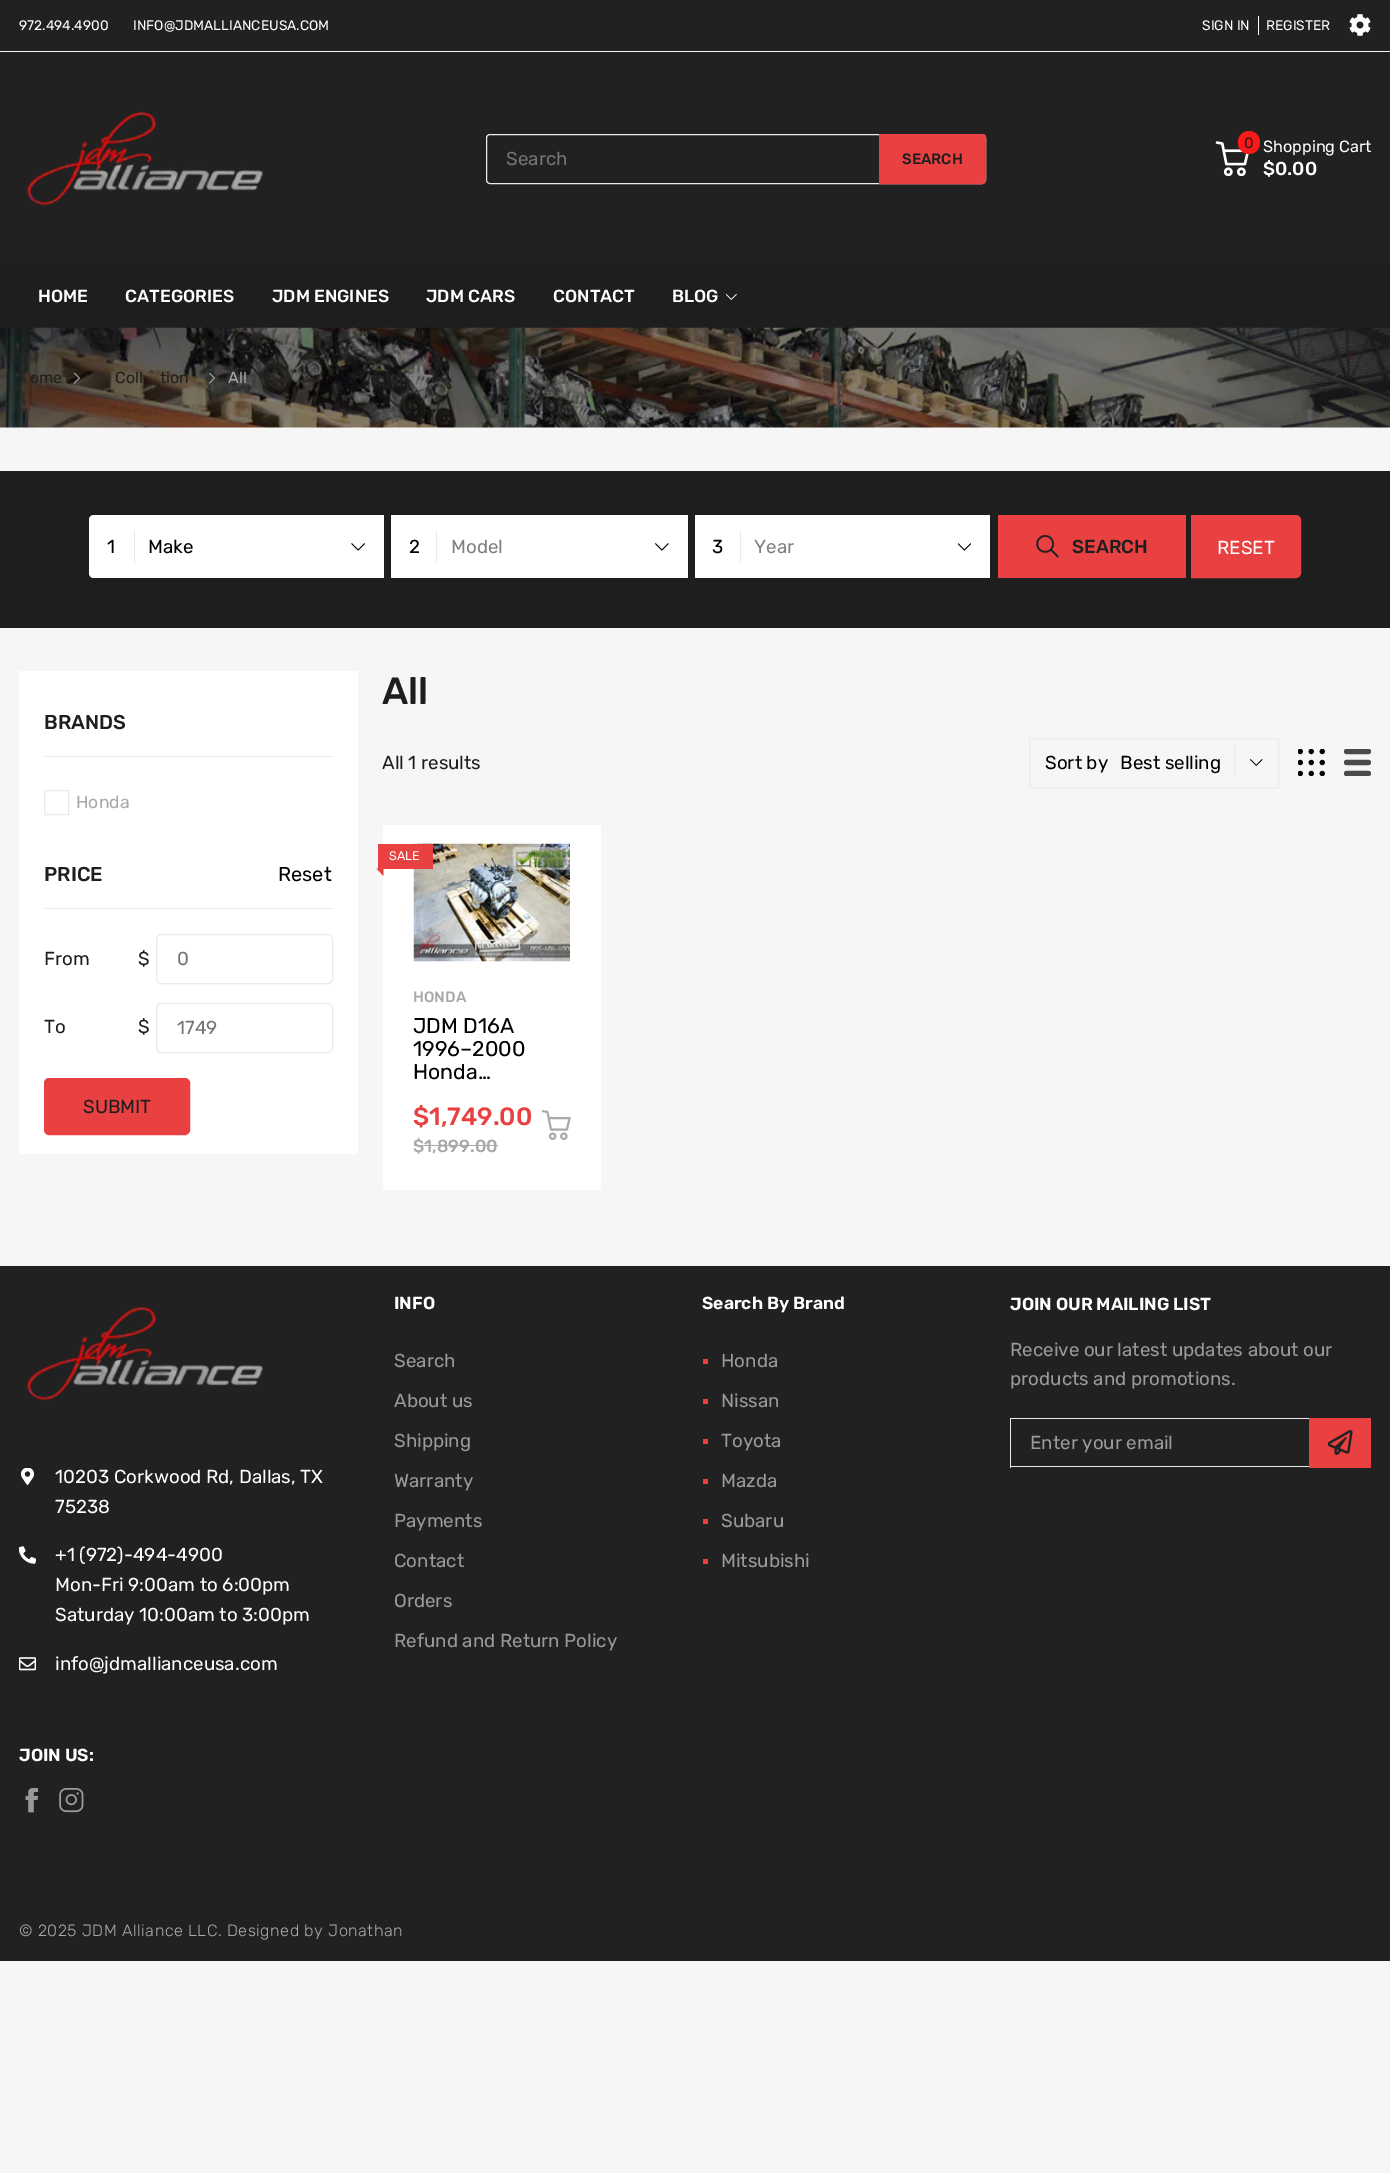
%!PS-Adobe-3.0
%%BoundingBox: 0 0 1390 2173
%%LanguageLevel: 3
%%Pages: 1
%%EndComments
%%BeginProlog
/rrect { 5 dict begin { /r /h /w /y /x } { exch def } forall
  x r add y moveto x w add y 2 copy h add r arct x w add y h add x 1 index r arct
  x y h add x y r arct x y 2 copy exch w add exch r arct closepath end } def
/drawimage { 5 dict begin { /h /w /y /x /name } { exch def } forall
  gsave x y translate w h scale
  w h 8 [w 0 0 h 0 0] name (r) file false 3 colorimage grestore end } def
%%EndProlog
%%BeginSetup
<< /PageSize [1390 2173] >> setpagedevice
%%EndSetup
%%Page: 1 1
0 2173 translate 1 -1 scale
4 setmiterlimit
0.965 setgray
0 0 1390 2173 rectfill
0.129 setgray
0 0 1390 265 rectfill
0.961 setgray
0 51 1390 1 rectfill
1 setgray
1258 16 1 19 rectfill
(images/1.raw) 1349 14 22 22 drawimage
(images/2.raw) 26 111 237 95 drawimage
0.922 setgray
486.5 134.5 499 49 3.5 rrect stroke
0.914 0.255 0.255 setrgbcolor
newpath 879.5 134.5 moveto 982 134.5 lineto 984 134.5 985.5 136 985.5 138 curveto 985.5 180 lineto 985.5 182 984 183.5 982 183.5 curveto 879.5 183.5 lineto closepath gsave fill grestore
stroke
(images/3.raw) 1215 141 34 35 drawimage
0.992 0.098 0.098 setrgbcolor
1238 131 22 23 11 rrect fill
0.118 setgray
0 265 1390 63 rectfill
(images/4.raw) 726 293 11 7 drawimage
(images/5.raw) 0 327 1390 101 drawimage
(images/6.raw) 73 373 7 11 drawimage
(images/7.raw) 208 373 7 11 drawimage
0 471 1390 157 rectfill
1 setgray
newpath 94 515 moveto 384 515 lineto 384 578 lineto 94 578 lineto 91 578 89 576 89 573 curveto 89 520 lineto 89 517 91 515 94 515 curveto closepath fill
0.922 setgray
134 530 1 34 rectfill
(images/8.raw) 351 543 14 8 drawimage
1 setgray
391 515 297 63 rectfill
0.922 setgray
436 530 1 34 rectfill
(images/9.raw) 655 543 14 8 drawimage
1 setgray
695 515 295 63 rectfill
0.922 setgray
740 530 1 34 rectfill
(images/10.raw) 958 543 13 8 drawimage
0.914 0.255 0.255 setrgbcolor
998 515 188 63 rectfill
(images/11.raw) 1036 535 23 23 drawimage
newpath 1191.5 515.5 moveto 1296 515.5 lineto 1298.5 515.5 1300.5 517.5 1300.5 520 curveto 1300.5 573 lineto 1300.5 575.5 1298.5 577.5 1296 577.5 curveto 1191.5 577.5 lineto closepath gsave fill grestore
stroke
1 setgray
19 671 339 483 rectfill
0.922 setgray
44 756 289 1 rectfill
44.5 790.5 24 24 rectstroke
44 908 289 1 rectfill
156.5 934.5 176 49 4.5 rrect stroke
156.5 1003.5 176 49 4.5 rrect stroke
0.914 0.255 0.255 setrgbcolor
44.5 1078.5 145 56 4.5 rrect gsave fill grestore
stroke
0.922 setgray
1029.5 738.5 249 49 rectstroke
1234 745 1 35 rectfill
(images/12.raw) 1250 759 13 7 drawimage
(images/13.raw) 1298 749 27 27 drawimage
(images/14.raw) 1344 749 27 27 drawimage
1 setgray
383 825 218 365 rectfill
(images/15.raw) 413 843 157 119 drawimage
0.914 0.255 0.255 setrgbcolor
378 844 55 25 rectfill
newpath 383.5 876 moveto 376.5 868.5 lineto 383.5 868.5 lineto closepath fill
0.663 setgray
414 1145 84 1 rectfill
(images/16.raw) 541 1110 30 30 drawimage
0.129 setgray
0 1266 1390 695 rectfill
0.914 0.255 0.255 setrgbcolor
703 1359 5 5 rectfill
703 1399 5 5 rectfill
703 1439 5 5 rectfill
703 1479 5 5 rectfill
703 1519 5 5 rectfill
703 1559 5 5 rectfill
0.922 setgray
1010 1418 299 1 rectfill
1010 1466 299 1 rectfill
1010 1418 1 50 rectfill
0.914 0.255 0.255 setrgbcolor
1309 1418 62 50 rectfill
(images/17.raw) 1328 1430 25 25 drawimage
(images/2.raw) 26 1306 237 95 drawimage
(images/18.raw) 21 1468 13 17 drawimage
(images/19.raw) 19 1546 17 18 drawimage
(images/20.raw) 19 1657 17 14 drawimage
(images/21.raw) 25 1788 14 25 drawimage
(images/22.raw) 59 1788 25 25 drawimage
/Rubik-Regular [13.75 0 0 -13.75 0 0] selectfont
1 setgray
19 30 moveto (972.494.4900) show
133 30 moveto (INFO@JDMALLIANCEUSA.COM) show
1202 30 moveto (SIGN IN) show
1266 30 moveto (REGISTER) show
/Rubik-Regular [18.75 0 0 -18.75 0 0] selectfont
0.459 setgray
506 165 moveto (Search) show
/Rubik-Medium [15 0 0 -15 0 0] selectfont
0.118 setgray
902 164 moveto (SEARCH) show
/Rubik-Regular [15 0 0 -15 0 0] selectfont
1244 148 moveto (0) show
/Rubik-Regular [16.25 0 0 -16.25 0 0] selectfont
1 setgray
1263 152 moveto (Shopping Cart) show
/Rubik-Medium [18.75 0 0 -18.75 0 0] selectfont
1263 175 moveto ($0.00) show
/Rubik-Medium [17.5 0 0 -17.5 0 0] selectfont
38 302 moveto (HOME) show
125 302 moveto (CATEGORIES) show
272 302 moveto (JDM ENGINES) show
426 302 moveto (JDM CARS) show
553 302 moveto (CONTACT) show
672 302 moveto (BLOG) show
/Rubik-Regular [16 0 0 -16 0 0] selectfont
0.118 setgray
30 383 moveto (ome) show
115 383 moveto (Coll) show
160 383 moveto (tion) show
0.663 setgray
228 383 moveto (All) show
/Rubik-Regular [18.75 0 0 -18.75 0 0] selectfont
0 setgray
107 553 moveto (1) show
148 553 moveto (Make) show
409 553 moveto (2) show
0.502 setgray
451 553 moveto (Model) show
0 setgray
712 553 moveto (3) show
0.502 setgray
754 553 moveto (Year) show
/Rubik-Medium [18.75 0 0 -18.75 0 0] selectfont
0.118 setgray
1072 553 moveto (SEARCH) show
/Rubik-Regular [18.75 0 0 -18.75 0 0] selectfont
1 setgray
1217 554 moveto (RESET) show
/Rubik-Medium [20 0 0 -20 0 0] selectfont
0.118 setgray
44 729 moveto (BRANDS) show
/Rubik-Regular [17.5 0 0 -17.5 0 0] selectfont
0.663 setgray
76 808 moveto (Honda) show
/Rubik-Medium [20 0 0 -20 0 0] selectfont
0.118 setgray
44 881 moveto (PRICE) show
/Rubik-Regular [20 0 0 -20 0 0] selectfont
0 setgray
278 881 moveto (Reset) show
/Rubik-Regular [18.75 0 0 -18.75 0 0] selectfont
0.118 setgray
44 965 moveto (From) show
138 965 moveto ($) show
0.459 setgray
177 965 moveto (0) show
0.118 setgray
44 1033 moveto (To) show
138 1033 moveto ($) show
0.459 setgray
177 1034 moveto (1749) show
0.118 setgray
83 1113 moveto (SUBMIT) show
/Rubik-Medium [38 0 0 -38 0 0] selectfont
382 704 moveto (All) show
/Rubik-Regular [18.75 0 0 -18.75 0 0] selectfont
382 769 moveto (All 1 results) show
0 setgray
1045 769 moveto (Sort by) show
1120 769 moveto (Best selling) show
/Rubik-Regular [12.5 0 0 -12.5 0 0] selectfont
1 setgray
389 860 moveto (SALE) show
/Rubik-Medium [15 0 0 -15 0 0] selectfont
0.663 setgray
413 1002 moveto (HONDA) show
/Rubik-Regular [21.25 0 0 -21.25 0 0] selectfont
0 setgray
413 1033 moveto (JDM D16A) show
413 1056 moveto (1996–2000) show
413 1079 moveto (Honda…) show
/Rubik-Medium [25 0 0 -25 0 0] selectfont
0.914 0.255 0.255 setrgbcolor
413 1125 moveto ($1,749.00) show
/Rubik-Medium [17.5 0 0 -17.5 0 0] selectfont
0.663 setgray
413 1152 moveto ($1,899.00) show
/Rubik-SemiBold [17.5 0 0 -17.5 0 0] selectfont
1 setgray
394 1309 moveto (INFO) show
/Rubik-Regular [18.75 0 0 -18.75 0 0] selectfont
0.604 setgray
394 1367 moveto (Search) show
394 1407 moveto (About us) show
394 1447 moveto (Shipping) show
394 1487 moveto (Warranty) show
394 1527 moveto (Payments) show
394 1567 moveto (Contact) show
394 1607 moveto (Orders) show
394 1647 moveto (Refund and Return Policy) show
/Rubik-SemiBold [17.5 0 0 -17.5 0 0] selectfont
1 setgray
702 1309 moveto (Search By Brand) show
/Rubik-Regular [18.75 0 0 -18.75 0 0] selectfont
0.604 setgray
721 1367 moveto (Honda) show
721 1407 moveto (Nissan) show
721 1447 moveto (Toyota) show
721 1487 moveto (Mazda) show
721 1527 moveto (Subaru) show
721 1567 moveto (Mitsubishi) show
/Rubik-SemiBold [17.5 0 0 -17.5 0 0] selectfont
1 setgray
1010 1310 moveto (JOIN OUR MAILING LIST) show
/Rubik-Regular [18.75 0 0 -18.75 0 0] selectfont
0.604 setgray
1010 1356 moveto (Receive our latest updates about our) show
1010 1385 moveto (products and promotions.) show
1030 1449 moveto (Enter your email) show
1 setgray
55 1483 moveto (10203 Corkwood Rd, Dallas, TX) show
55 1513 moveto (75238) show
55 1561 moveto (+1 \(972\)-494-4900) show
55 1591 moveto (Mon-Fri 9:00am to 6:00pm) show
55 1621 moveto (Saturday 10:00am to 3:00pm) show
55 1670 moveto (info@jdmallianceusa.com) show
/Rubik-SemiBold [17.5 0 0 -17.5 0 0] selectfont
19 1761 moveto (JOIN US:) show
/Rubik-Light [16.25 0 0 -16.25 0 0] selectfont
0.663 setgray
19 1936 moveto 0.5 0 (© 2025 JDM Alliance LLC. Designed by Jonathan) ashow
showpage
%%EOF
